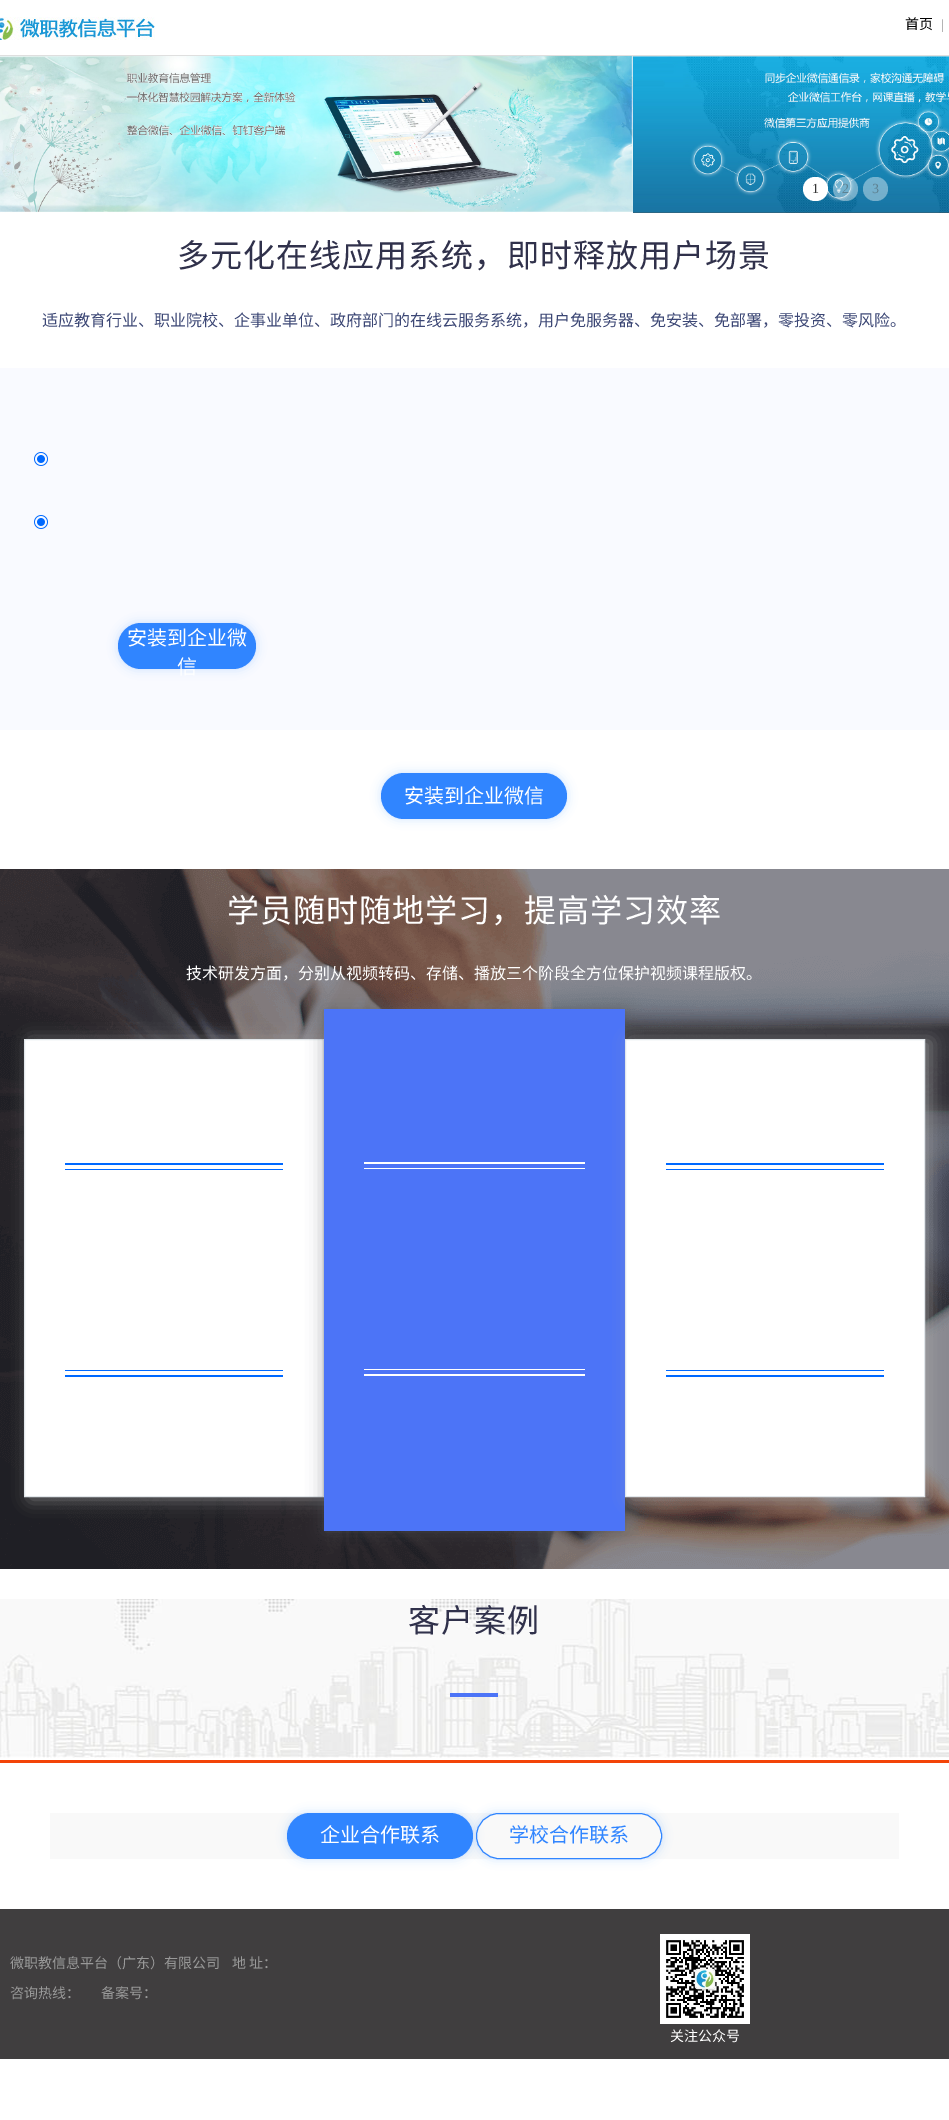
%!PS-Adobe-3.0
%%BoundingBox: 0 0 949 2120
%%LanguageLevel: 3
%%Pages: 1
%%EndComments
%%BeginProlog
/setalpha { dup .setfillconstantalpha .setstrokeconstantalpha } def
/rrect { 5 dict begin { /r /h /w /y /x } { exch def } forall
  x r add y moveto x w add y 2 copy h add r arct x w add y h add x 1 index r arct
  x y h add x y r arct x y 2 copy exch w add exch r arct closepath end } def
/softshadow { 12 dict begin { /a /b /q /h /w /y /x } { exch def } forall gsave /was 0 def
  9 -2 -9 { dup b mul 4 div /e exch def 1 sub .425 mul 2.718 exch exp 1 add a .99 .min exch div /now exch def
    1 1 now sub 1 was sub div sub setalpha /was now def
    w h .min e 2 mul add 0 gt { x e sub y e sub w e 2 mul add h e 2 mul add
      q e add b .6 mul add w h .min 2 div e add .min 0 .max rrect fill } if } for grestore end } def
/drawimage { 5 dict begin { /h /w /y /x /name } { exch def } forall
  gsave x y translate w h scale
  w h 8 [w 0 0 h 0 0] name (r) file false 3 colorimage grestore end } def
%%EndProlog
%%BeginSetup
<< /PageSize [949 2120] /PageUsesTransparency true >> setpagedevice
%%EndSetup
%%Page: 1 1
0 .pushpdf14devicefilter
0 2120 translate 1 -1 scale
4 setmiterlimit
1 setgray
0 0 949 2120 rectfill
0.875 setgray
0 55 949 1 rectfill
(images/1.raw) 0 17 155 23 drawimage
(images/2.raw) 0 56 633 157 drawimage
(images/3.raw) 633 56 316 157 drawimage
1 setgray
803 177 25 24 12 rrect fill
0.4 setalpha
833 177 25 24 12 rrect fill
863 177 25 24 12 rrect fill
1 setalpha
0.976 0.98 1 setrgbcolor
0 368 949 362 rectfill
(images/4.raw) 34 452 14 14 drawimage
(images/4.raw) 34 515 14 14 drawimage
0.078 0.443 0.961 setrgbcolor
118 623 138 46 23 5 0.2 softshadow
0.188 0.522 1 setrgbcolor
118 623 138 46 23 rrect fill
0.078 0.443 0.961 setrgbcolor
381 773 186 46 23 5 0.2 softshadow
0.188 0.522 1 setrgbcolor
381 773 186 46 23 rrect fill
(images/5.raw) 0 869 949 700 drawimage
0.643 setgray
30 1041 300 458 0 8.5 0.65 softshadow
1 setgray
newpath 24.5 1039.5 moveto 323.5 1039.5 lineto 323.5 1496.5 lineto 24.5 1496.5 lineto closepath gsave fill grestore
0.886 0.906 0.922 setrgbcolor
stroke
0 0.412 1 setrgbcolor
65 1163 218 2 rectfill
65 1169 218 1 rectfill
65 1370 218 1 rectfill
65 1375 218 2 rectfill
0.349 0.369 0.388 setrgbcolor
324 1009 301 522 0 8.5 0.51 softshadow
0.298 0.455 0.969 setrgbcolor
324 1009 301 522 rectfill
1 setgray
364 1162 221 2 rectfill
364 1168 221 1 rectfill
364 1369 221 1 rectfill
364 1374 221 2 rectfill
0.643 setgray
631 1041 300 458 0 8.5 0.65 softshadow
1 setgray
newpath 625.5 1039.5 moveto 924.5 1039.5 lineto 924.5 1496.5 lineto 625.5 1496.5 lineto closepath gsave fill grestore
0.886 0.906 0.922 setrgbcolor
stroke
0 0.412 1 setrgbcolor
666 1163 218 2 rectfill
666 1169 218 1 rectfill
666 1370 218 1 rectfill
666 1375 218 2 rectfill
(images/6.raw) 0 1599 949 159 drawimage
0.953 0.267 0.031 setrgbcolor
0 1760 949 3 rectfill
0.298 0.455 0.969 setrgbcolor
450 1693 48 4 rectfill
0.976 setgray
50 1813 849 46 rectfill
0.078 0.443 0.961 setrgbcolor
287 1813 186 46 23 5 0.2 softshadow
0.188 0.522 1 setrgbcolor
287 1813 186 46 23 rrect fill
gsave
newpath 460 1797 moveto 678 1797 lineto 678 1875 lineto 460 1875 lineto closepath 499 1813 moveto 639 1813 lineto 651.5 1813 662 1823.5 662 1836 curveto 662 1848.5 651.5 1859 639 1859 curveto 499 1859 lineto 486.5 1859 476 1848.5 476 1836 curveto 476 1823.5 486.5 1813 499 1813 curveto closepath eoclip newpath
0.078 0.443 0.961 setrgbcolor
476 1813 186 46 23 5 0.2 softshadow
grestore
476.5 1813.5 185 45 22.5 rrect stroke
0.251 0.243 0.247 setrgbcolor
0 1909 949 150 rectfill
(images/7.raw) 660 1934 90 90 drawimage
/NotoSansCJKSC-Regular [14 0 0 -14 0 0] selectfont
0 setgray
905 29 moveto (首页) show
/LiberationSerif-Regular [14 0 0 -14 0 0] selectfont
0.6 setgray
941 29 moveto (|) show
0.208 setgray
812 193 moveto (1) show
0.369 0.51 0.573 setrgbcolor
842 193 moveto (2) show
872 193 moveto (3) show
/NotoSansCJKSC-Regular [32 0 0 -32 0 0] selectfont
0.188 0.192 0.294 setrgbcolor
177 267 moveto 1 0 (多元化在线应用系统，即时释放用户场景) ashow
/NotoSansCJKSC-Regular [16 0 0 -16 0 0] selectfont
0.235 0.278 0.459 setrgbcolor
42 326 moveto (适应教育行业、职业院校、企事业单位、政府部门的在线云服务系统，用户免服务器、免安装、免部署，零投资、零风险。) show
/NotoSansCJKSC-Regular [20 0 0 -20 0 0] selectfont
1 setgray
127 645 moveto (安装到企业微) show
177 674 moveto (信) show
404 803 moveto (安装到企业微信) show
/NotoSansCJKSC-Regular [32 0 0 -32 0 0] selectfont
227 922 moveto 1 0 (学员随时随地学习，提高学习效率) ashow
/NotoSansCJKSC-Regular [16 0 0 -16 0 0] selectfont
186 979 moveto (技术研发方面，分别从视频转码、存储、播放三个阶段全方位保护视频课程版权。) show
/NotoSansCJKSC-Regular [32 0 0 -32 0 0] selectfont
0.188 0.192 0.294 setrgbcolor
408 1632 moveto 1 0 (客户案例) ashow
/NotoSansCJKSC-Regular [20 0 0 -20 0 0] selectfont
1 setgray
320 1842 moveto (企业合作联系) show
0.188 0.522 1 setrgbcolor
509 1842 moveto (学校合作联系) show
/NotoSansCJKSC-Regular [14 0 0 -14 0 0] selectfont
0.6 setgray
10 1968 moveto (微职教信息平台（广东）有限公司) show
232 1968 moveto (地 址：) show
10 1998 moveto (咨询热线：) show
101 1998 moveto (备案号：) show
1 setgray
670 2041 moveto (关注公众号) show
.poppdf14devicefilter showpage
%%EOF
